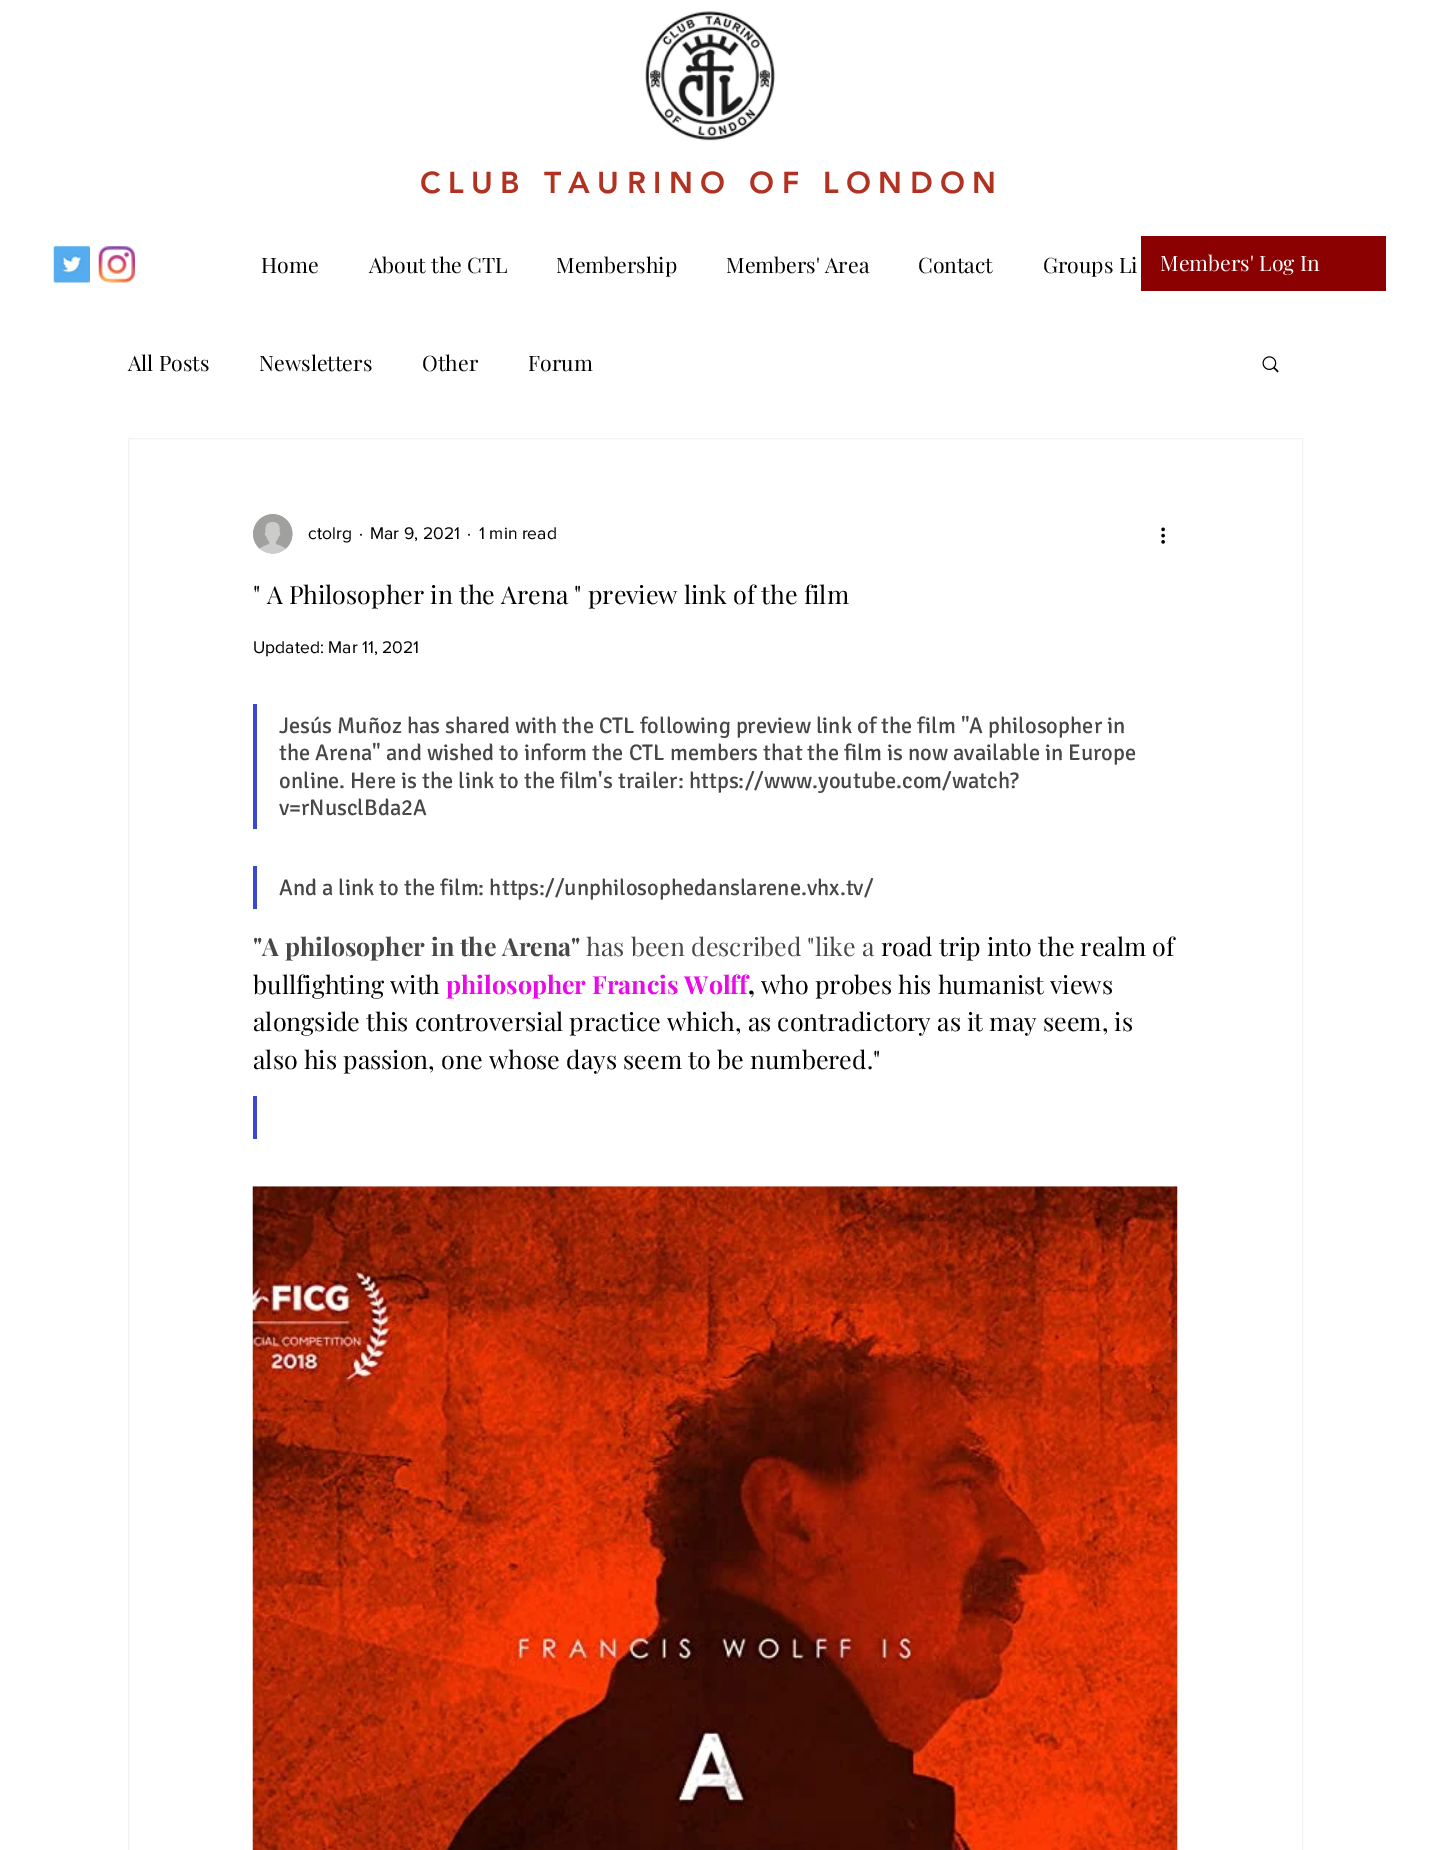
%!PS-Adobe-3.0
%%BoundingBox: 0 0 1430 1850
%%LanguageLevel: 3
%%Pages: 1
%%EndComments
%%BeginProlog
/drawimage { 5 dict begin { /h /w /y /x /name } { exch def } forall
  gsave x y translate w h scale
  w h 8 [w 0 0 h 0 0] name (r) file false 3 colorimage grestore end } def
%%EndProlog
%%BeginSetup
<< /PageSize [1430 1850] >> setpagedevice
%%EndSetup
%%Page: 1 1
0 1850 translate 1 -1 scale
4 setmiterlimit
1 setgray
0 0 1430 1850 rectfill
(images/1.raw) 645 11 131 130 drawimage
(images/2.raw) 53 246 37 37 drawimage
(images/3.raw) 98 246 37 37 drawimage
0.545 0 0 setrgbcolor
1141 236 245 55 rectfill
(images/4.raw) 1262 356 17 17 drawimage
0.949 0.945 0.945 setrgbcolor
128.5 438.5 1174 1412 rectstroke
(images/5.raw) 253 514 40 40 drawimage
(images/6.raw) 1161 527 4 17 drawimage
0.22 0.29 0.827 setrgbcolor
253 704 4 125 rectfill
253 866 4 43 rectfill
253 1096 4 43 rectfill
(images/7.raw) 252 1186 926 664 drawimage
/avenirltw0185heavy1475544-Black [30 0 0 -30 0 0] selectfont
0.698 0.196 0.133 setrgbcolor
420 193 moveto 7.5 0 (CLUB TAURINO OF LONDON) ashow
/PlayfairDisplay-Regular [21.25 0 0 -21.25 0 0] selectfont
0 setgray
261 273 moveto (Home) show
369 273 moveto (About the CTL) show
556 273 moveto (Membership) show
726 273 moveto (Members' Area) show
918 273 moveto (Contact) show
1043 273 moveto (Groups Li) show
1 1 0.996 setrgbcolor
1160 271 moveto (Members' Log In) show
0 setgray
128 371 moveto (All Posts) show
259 371 moveto (Newsletters) show
422 371 moveto (Other) show
528 371 moveto (Forum) show
/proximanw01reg-Regular [17.5 0 0 -17.5 0 0] selectfont
308 539 moveto (ctolrg) show
359 539 moveto (·) show
370 539 moveto (Mar 9, 2021) show
467 539 moveto (·) show
479 539 moveto (1 min read) show
/PlayfairDisplay-Regular [25 0 0 -25 0 0] selectfont
253 604 moveto (" A Philosopher in the Arena " preview link of the film) show
/proximanw01reg-Regular [17.5 0 0 -17.5 0 0] selectfont
253 653 moveto (Updated: Mar 11, 2021) show
/Signika-Regular [22.5 0 0 -22.5 0 0] selectfont
0.278 setgray
279 733 moveto (Jesús Muñoz has shared with the CTL following preview link of the film "A philosopher in) show
279 760 moveto (the Arena" and wished to inform the CTL members that the film is now available in Europe) show
279 788 moveto (online. Here is the link to the film's trailer: https://www.youtube.com/watch?) show
279 815 moveto (v=rNusclBda2A) show
279 895 moveto (And a link to the film: https://unphilosophedanslarene.vhx.tv/) show
/PlayfairDisplay-Bold [25 0 0 -25 0 0] selectfont
253 956 moveto ("A philosopher in the Arena") show
/PlayfairDisplay-Regular [25 0 0 -25 0 0] selectfont
586 956 moveto (has been described "like a) show
0 setgray
881 956 moveto (road trip into the realm of) show
253 994 moveto (bullfighting with) show
/PlayfairDisplay-Bold [25 0 0 -25 0 0] selectfont
0.918 0.035 0.906 setrgbcolor
446 994 moveto (philosopher Francis Wolff) show
0 setgray
748 994 moveto (,) show
/PlayfairDisplay-Regular [25 0 0 -25 0 0] selectfont
761 994 moveto (who probes his humanist views) show
253 1031 moveto (alongside this controversial practice which, as contradictory as it may seem, is) show
253 1069 moveto (also his passion, one whose days seem to be numbered.") show
showpage
%%EOF
